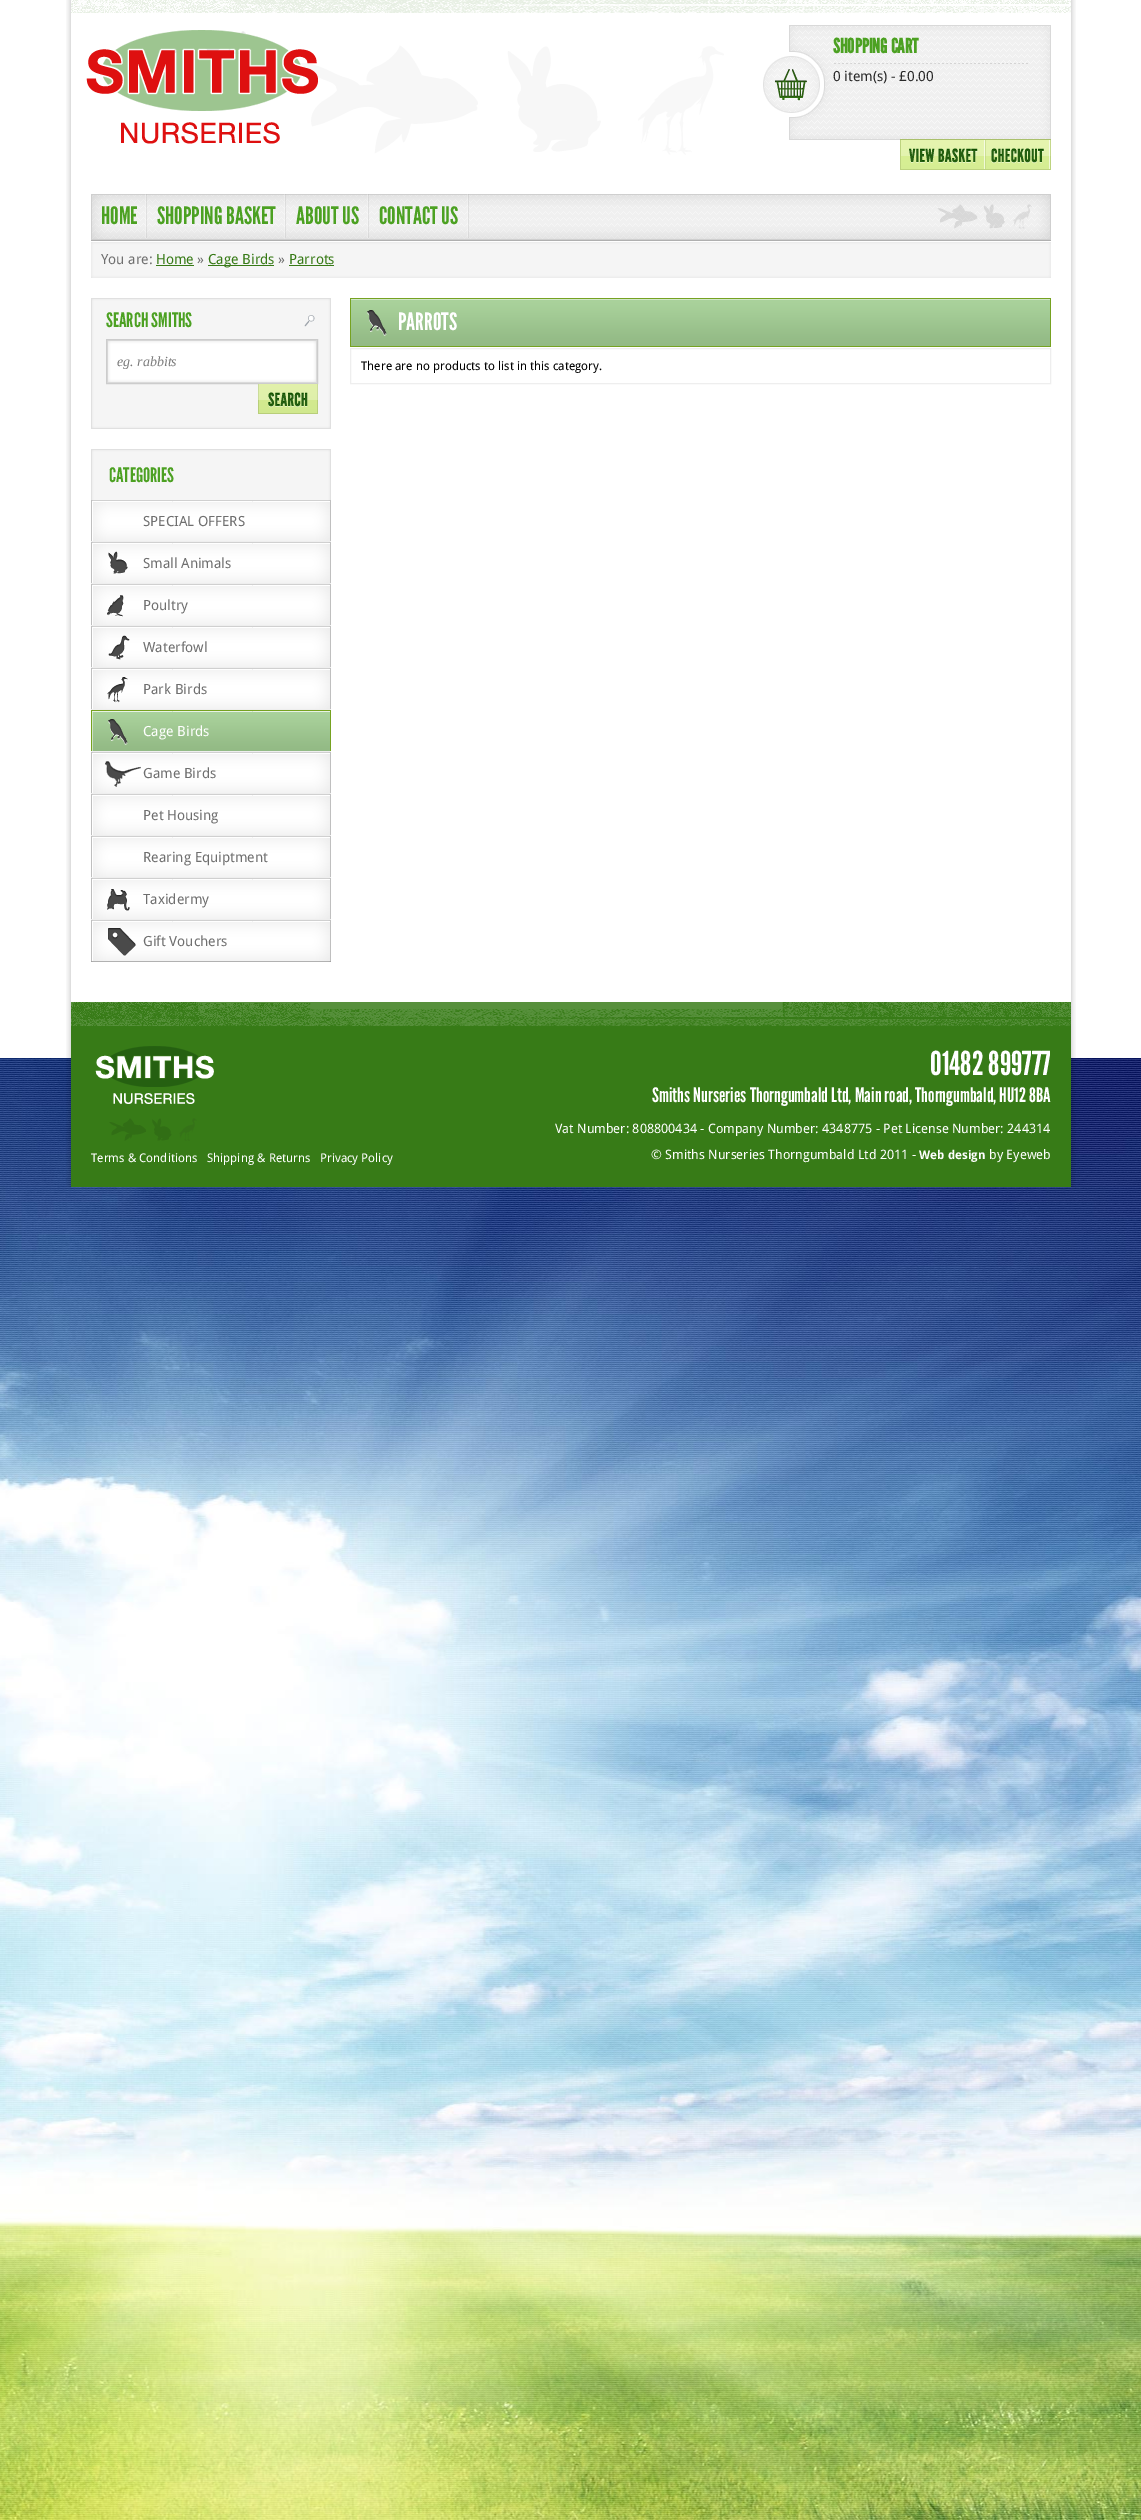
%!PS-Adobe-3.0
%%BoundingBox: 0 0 1141 2520
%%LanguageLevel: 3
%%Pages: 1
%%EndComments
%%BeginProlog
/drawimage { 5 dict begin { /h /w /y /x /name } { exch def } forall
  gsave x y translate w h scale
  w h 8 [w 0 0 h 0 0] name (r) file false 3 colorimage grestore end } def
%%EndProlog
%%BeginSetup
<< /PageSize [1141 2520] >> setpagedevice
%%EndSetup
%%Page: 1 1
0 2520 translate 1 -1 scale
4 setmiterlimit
1 setgray
0 0 1141 2520 rectfill
(images/1.raw) 0 1058 1141 1462 drawimage
(images/2.raw) 66 0 1010 1187 drawimage
(images/3.raw) 71 0 1000 13 drawimage
(images/4.raw) 158 31 566 124 drawimage
(images/5.raw) 86 30 232 114 drawimage
(images/6.raw) 763 25 288 115 drawimage
(images/7.raw) 900 139 81 31 drawimage
(images/8.raw) 981 139 70 31 drawimage
(images/9.raw) 91 194 960 84 drawimage
(images/10.raw) 145 194 2 44 drawimage
(images/11.raw) 284 194 2 44 drawimage
(images/10.raw) 367 194 2 44 drawimage
(images/12.raw) 467 194 2 44 drawimage
0.216 0.478 0.086 setrgbcolor
156 265 38 1 rectfill
208 265 66 1 rectfill
289 265 45 1 rectfill
(images/13.raw) 91 298 240 131 drawimage
(images/14.raw) 304 315 11 12 drawimage
(images/15.raw) 107 340 210 43 drawimage
0.8 setgray
106.5 339.5 211 44 rectstroke
(images/16.raw) 258 384 60 30 drawimage
(images/17.raw) 91 449 240 51 drawimage
(images/18.raw) 91 500 240 41 drawimage
(images/18.raw) 91 542 240 41 drawimage
0.933 setgray
91 541 240 1 rectfill
(images/19.raw) 108 551 20 23 drawimage
(images/18.raw) 91 584 240 41 drawimage
91 583 240 1 rectfill
(images/20.raw) 107 595 17 22 drawimage
(images/18.raw) 91 626 240 41 drawimage
91 625 240 1 rectfill
(images/21.raw) 108 635 22 25 drawimage
(images/18.raw) 91 668 240 41 drawimage
91 667 240 1 rectfill
(images/22.raw) 107 677 21 26 drawimage
(images/23.raw) 91 710 240 41 drawimage
91 709 240 1 rectfill
(images/24.raw) 108 719 20 26 drawimage
(images/18.raw) 91 752 240 41 drawimage
91 751 240 1 rectfill
(images/25.raw) 105 761 36 26 drawimage
(images/18.raw) 91 794 240 41 drawimage
91 793 240 1 rectfill
(images/18.raw) 91 836 240 41 drawimage
91 835 240 1 rectfill
(images/18.raw) 91 878 240 41 drawimage
91 877 240 1 rectfill
(images/26.raw) 107 889 23 22 drawimage
(images/27.raw) 91 920 240 42 drawimage
91 919 240 1 rectfill
(images/28.raw) 108 928 28 29 drawimage
(images/29.raw) 350 298 701 49 drawimage
(images/30.raw) 367 310 20 26 drawimage
350.5 348.5 700 35 rectstroke
0.216 0.482 0.09 setrgbcolor
71 1026 1000 161 rectfill
(images/31.raw) 71 1002 1000 24 drawimage
(images/32.raw) 95 1046 119 95 drawimage
/LeagueGothic-Bold [20 0 0 -20 0 0] selectfont
0.298 0.631 0.133 setrgbcolor
833 53 moveto (SHOPPING CART) show
/DroidSans-Regular [14 0 0 -14 0 0] selectfont
0.161 setgray
833 81 moveto (0 item\(s\) - £0.00) show
/LeagueGothic-Regular [24 0 0 -24 0 0] selectfont
0.298 0.631 0.133 setrgbcolor
101 224 moveto (HOME) show
157 224 moveto (SHOPPING BASKET) show
296 224 moveto (ABOUT US) show
379 224 moveto (CONTACT US) show
/DroidSans-Regular [14 0 0 -14 0 0] selectfont
0.435 setgray
101 264 moveto (You are:) show
0.216 0.478 0.086 setrgbcolor
156 264 moveto (Home) show
0.435 setgray
197 264 moveto (») show
0.216 0.478 0.086 setrgbcolor
208 264 moveto (Cage Birds) show
0.435 setgray
278 264 moveto (») show
0.216 0.478 0.086 setrgbcolor
289 264 moveto (Parrots) show
/LeagueGothic-Regular [20 0 0 -20 0 0] selectfont
0.298 0.631 0.133 setrgbcolor
106 327 moveto (SEARCH SMITHS) show
/LiberationSerif-Italic [14 0 0 -14 0 0] selectfont
0.482 setgray
117 366 moveto (eg. rabbits) show
/LeagueGothic-Regular [20 0 0 -20 0 0] selectfont
0.298 0.631 0.133 setrgbcolor
109 482 moveto (CATEGORIES) show
/DroidSans-Regular [14 0 0 -14 0 0] selectfont
0.435 setgray
143 526 moveto (SPECIAL OFFERS) show
143 568 moveto (Small Animals) show
143 610 moveto (Poultry) show
143 652 moveto (Waterfowl) show
143 694 moveto (Park Birds) show
1 setgray
143 736 moveto (Cage Birds) show
0.435 setgray
143 778 moveto (Game Birds) show
143 820 moveto (Pet Housing) show
143 862 moveto (Rearing Equiptment) show
143 904 moveto (Taxidermy) show
143 946 moveto (Gift Vouchers) show
/LeagueGothic-Regular [24 0 0 -24 0 0] selectfont
1 setgray
398 330 moveto (PARROTS) show
/DroidSans-Regular [12 0 0 -12 0 0] selectfont
0 setgray
361 370 moveto (There are no products to list in this category.) show
1 setgray
91 1162 moveto (Terms & Conditions) show
207 1162 moveto (Shipping & Returns) show
320 1162 moveto (Privacy Policy) show
/LeagueGothic-Regular [33 0 0 -33 0 0] selectfont
930 1075 moveto (01482 899777) show
/LeagueGothic-Regular [20 0 0 -20 0 0] selectfont
652 1102 moveto (Smiths Nurseries Thorngumbald Ltd, Main road, Thorngumbald, HU12 8BA) show
/DroidSans-Regular [13 0 0 -13 0 0] selectfont
555 1133 moveto (Vat Number: 808800434 - Company Number: 4348775 - Pet License Number: 244314) show
651 1159 moveto (© Smiths Nurseries Thorngumbald Ltd 2011 -) show
/DroidSans-Bold [12 0 0 -12 0 0] selectfont
919 1159 moveto (Web design) show
/DroidSans-Regular [13 0 0 -13 0 0] selectfont
989 1159 moveto (by Eyeweb) show
showpage
%%EOF
